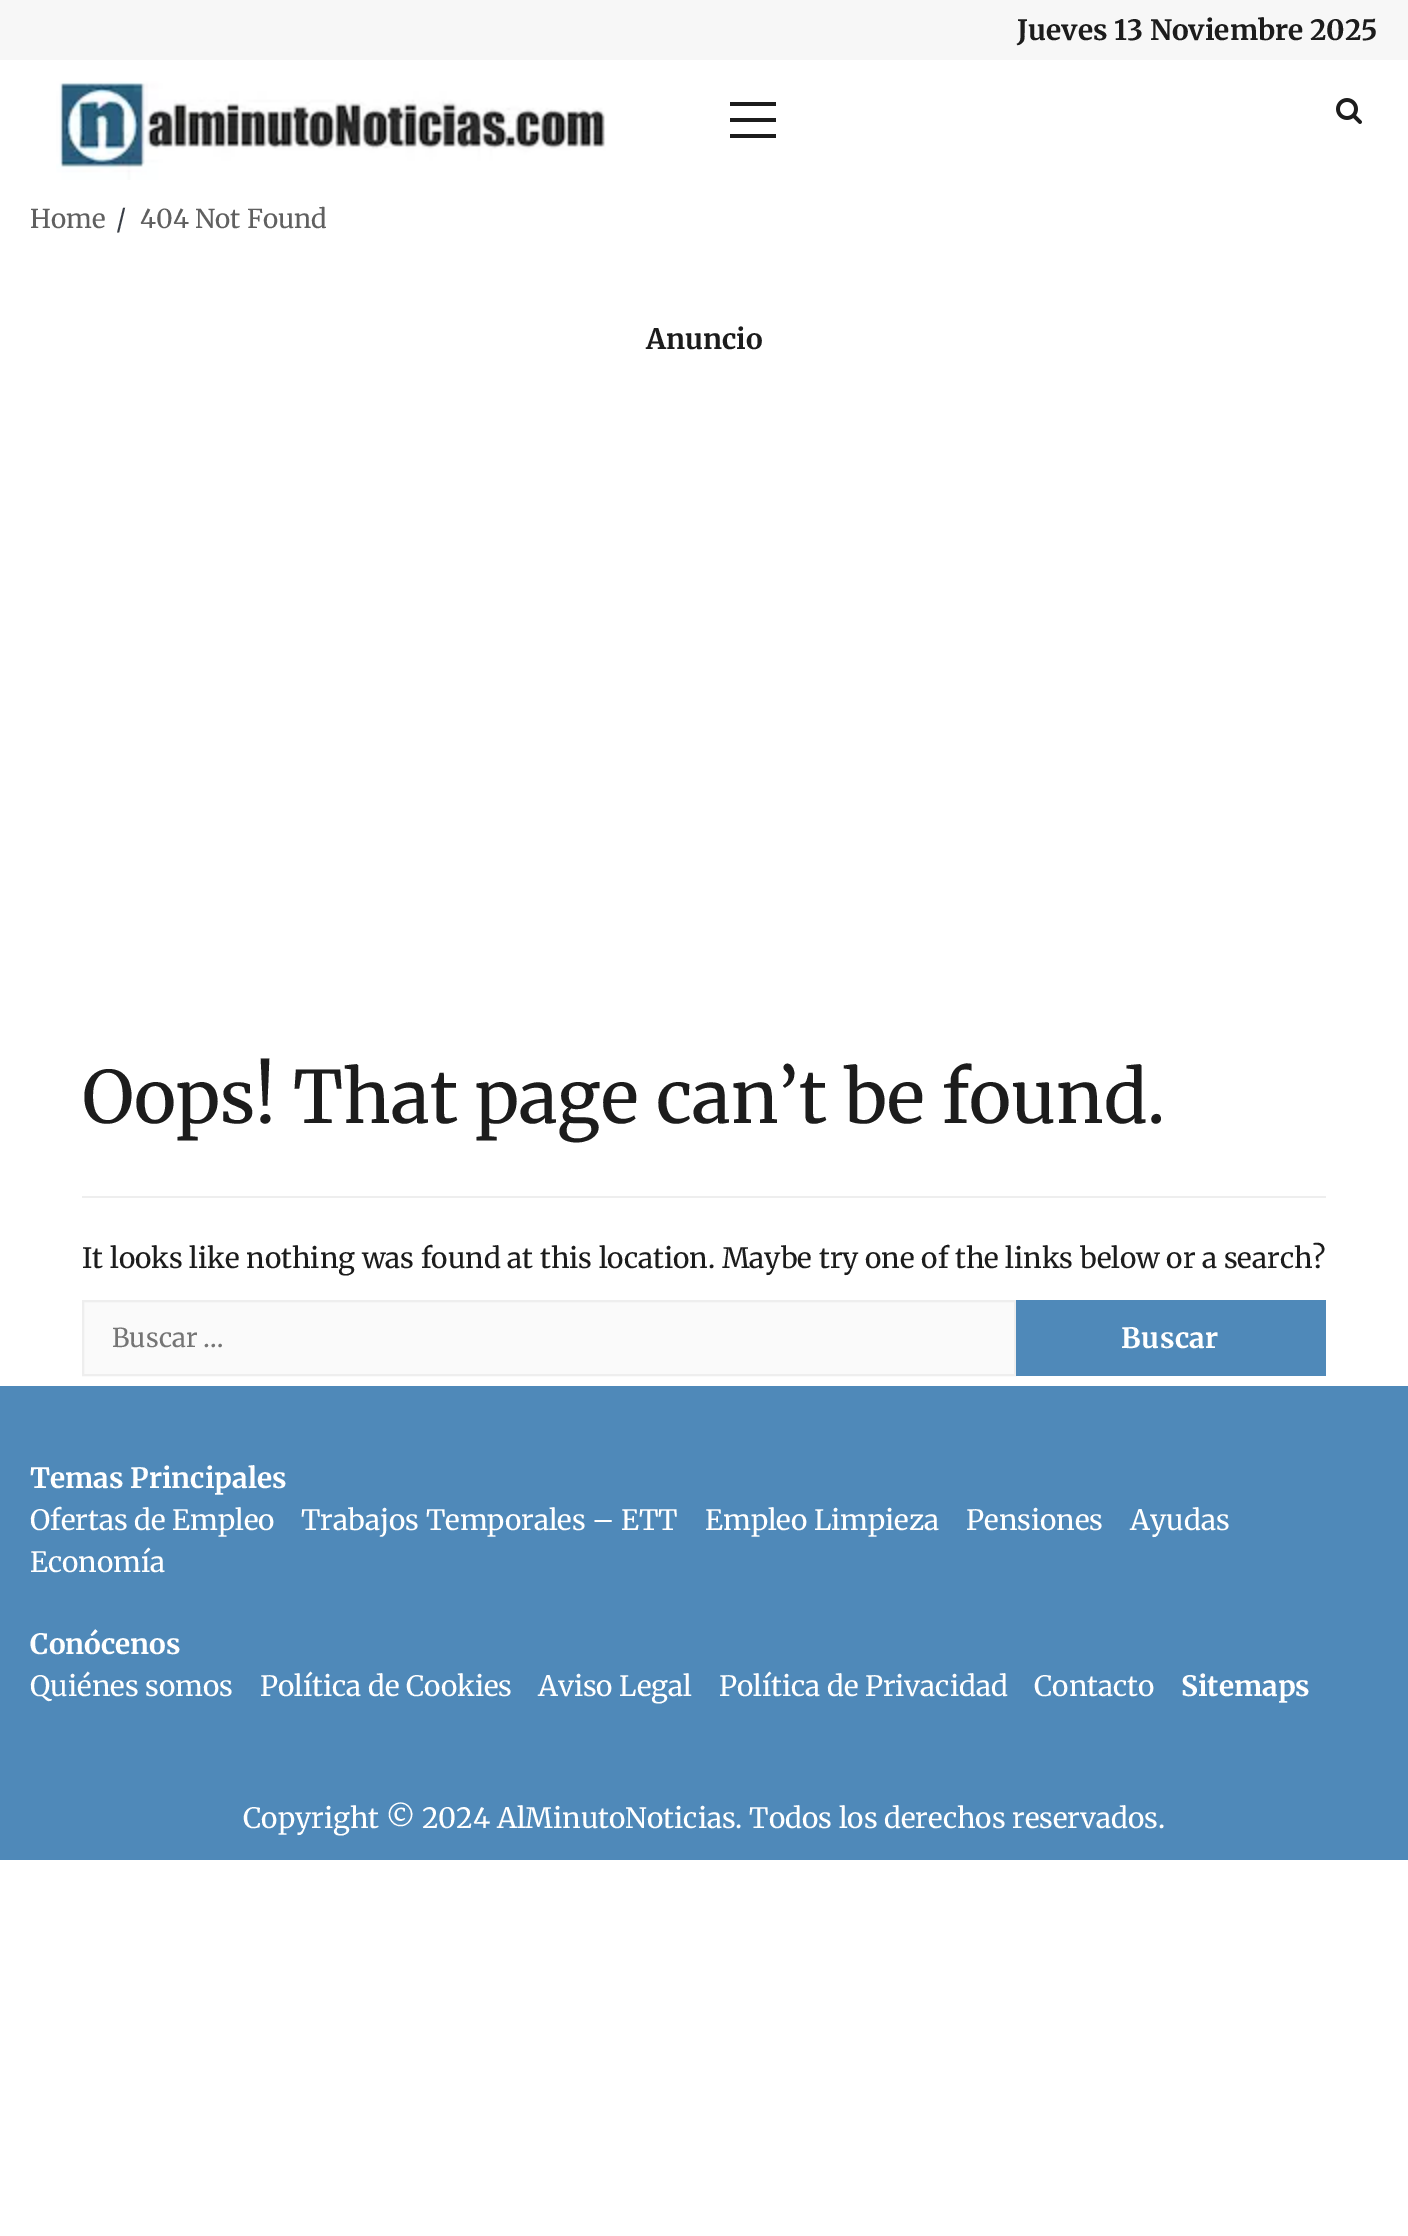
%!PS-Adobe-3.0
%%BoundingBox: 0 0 1408 2236
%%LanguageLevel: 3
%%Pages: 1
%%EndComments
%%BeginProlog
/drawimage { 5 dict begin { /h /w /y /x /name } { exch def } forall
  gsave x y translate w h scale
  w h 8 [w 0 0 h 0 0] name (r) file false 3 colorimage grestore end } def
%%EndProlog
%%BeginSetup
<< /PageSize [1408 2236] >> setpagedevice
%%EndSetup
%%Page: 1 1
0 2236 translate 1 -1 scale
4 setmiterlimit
1 setgray
0 0 1408 2236 rectfill
0.969 setgray
0 0 1408 60 rectfill
(images/1.raw) 56 81 550 99 drawimage
0.11 setgray
730 118 46 4 rectfill
730 102 46 4 rectfill
730 134 46 4 rectfill
(images/2.raw) 1336 98 26 26 drawimage
0.933 setgray
82 1196 1244 2 rectfill
0.98 setgray
newpath 83 1301 moveto 1015 1301 lineto 1015 1375 lineto 83 1375 lineto closepath gsave fill grestore
0.933 setgray
2 setlinewidth
stroke
0.31 0.537 0.725 setrgbcolor
1016 1300 310 76 rectfill
0 1386 1408 474 rectfill
/Merriweather-Bold [28 0 0 -28 0 0] selectfont
0.11 setgray
1017 40 moveto (Jueves 13 Noviembre 2025) show
/Merriweather-Regular [26 0 0 -26 0 0] selectfont
0.376 setgray
30 228 moveto (Home) show
0.224 0.243 0.275 setrgbcolor
116 228 moveto (/) show
0.376 setgray
140 228 moveto (404 Not Found) show
/Merriweather-Bold [28 0 0 -28 0 0] selectfont
0.11 setgray
646 349 moveto (Anuncio) show
/Merriweather-Regular [72 0 0 -72 0 0] selectfont
82 1123 moveto (Oops! That page can’t be found.) show
/Merriweather-Regular [28 0 0 -28 0 0] selectfont
82 1268 moveto (It looks like nothing was found at this location. Maybe try one of the links below or a search?) show
/Merriweather-Regular [26 0 0 -26 0 0] selectfont
0.459 setgray
112 1347 moveto (Buscar …) show
/Merriweather-Bold [28 0 0 -28 0 0] selectfont
1 setgray
1121 1348 moveto 0.5 0 (Buscar) ashow
30 1488 moveto (Temas Principales) show
/Merriweather-Regular [28 0 0 -28 0 0] selectfont
30 1530 moveto (Ofertas de Empleo) show
301 1530 moveto (Trabajos Temporales – ETT) show
705 1530 moveto (Empleo Limpieza) show
966 1530 moveto (Pensiones) show
1130 1530 moveto (Ayudas) show
30 1572 moveto (Economía) show
/Merriweather-Bold [28 0 0 -28 0 0] selectfont
30 1654 moveto (Conócenos) show
/Merriweather-Regular [28 0 0 -28 0 0] selectfont
30 1696 moveto (Quiénes somos) show
260 1696 moveto (Política de Cookies) show
538 1696 moveto (Aviso Legal) show
719 1696 moveto (Política de Privacidad) show
1034 1696 moveto (Contacto) show
/Merriweather-Bold [28 0 0 -28 0 0] selectfont
1181 1696 moveto (Sitemaps) show
/Merriweather-Regular [28 0 0 -28 0 0] selectfont
243 1828 moveto (Copyright © 2024 AlMinutoNoticias. Todos los derechos reservados.) show
showpage
%%EOF
